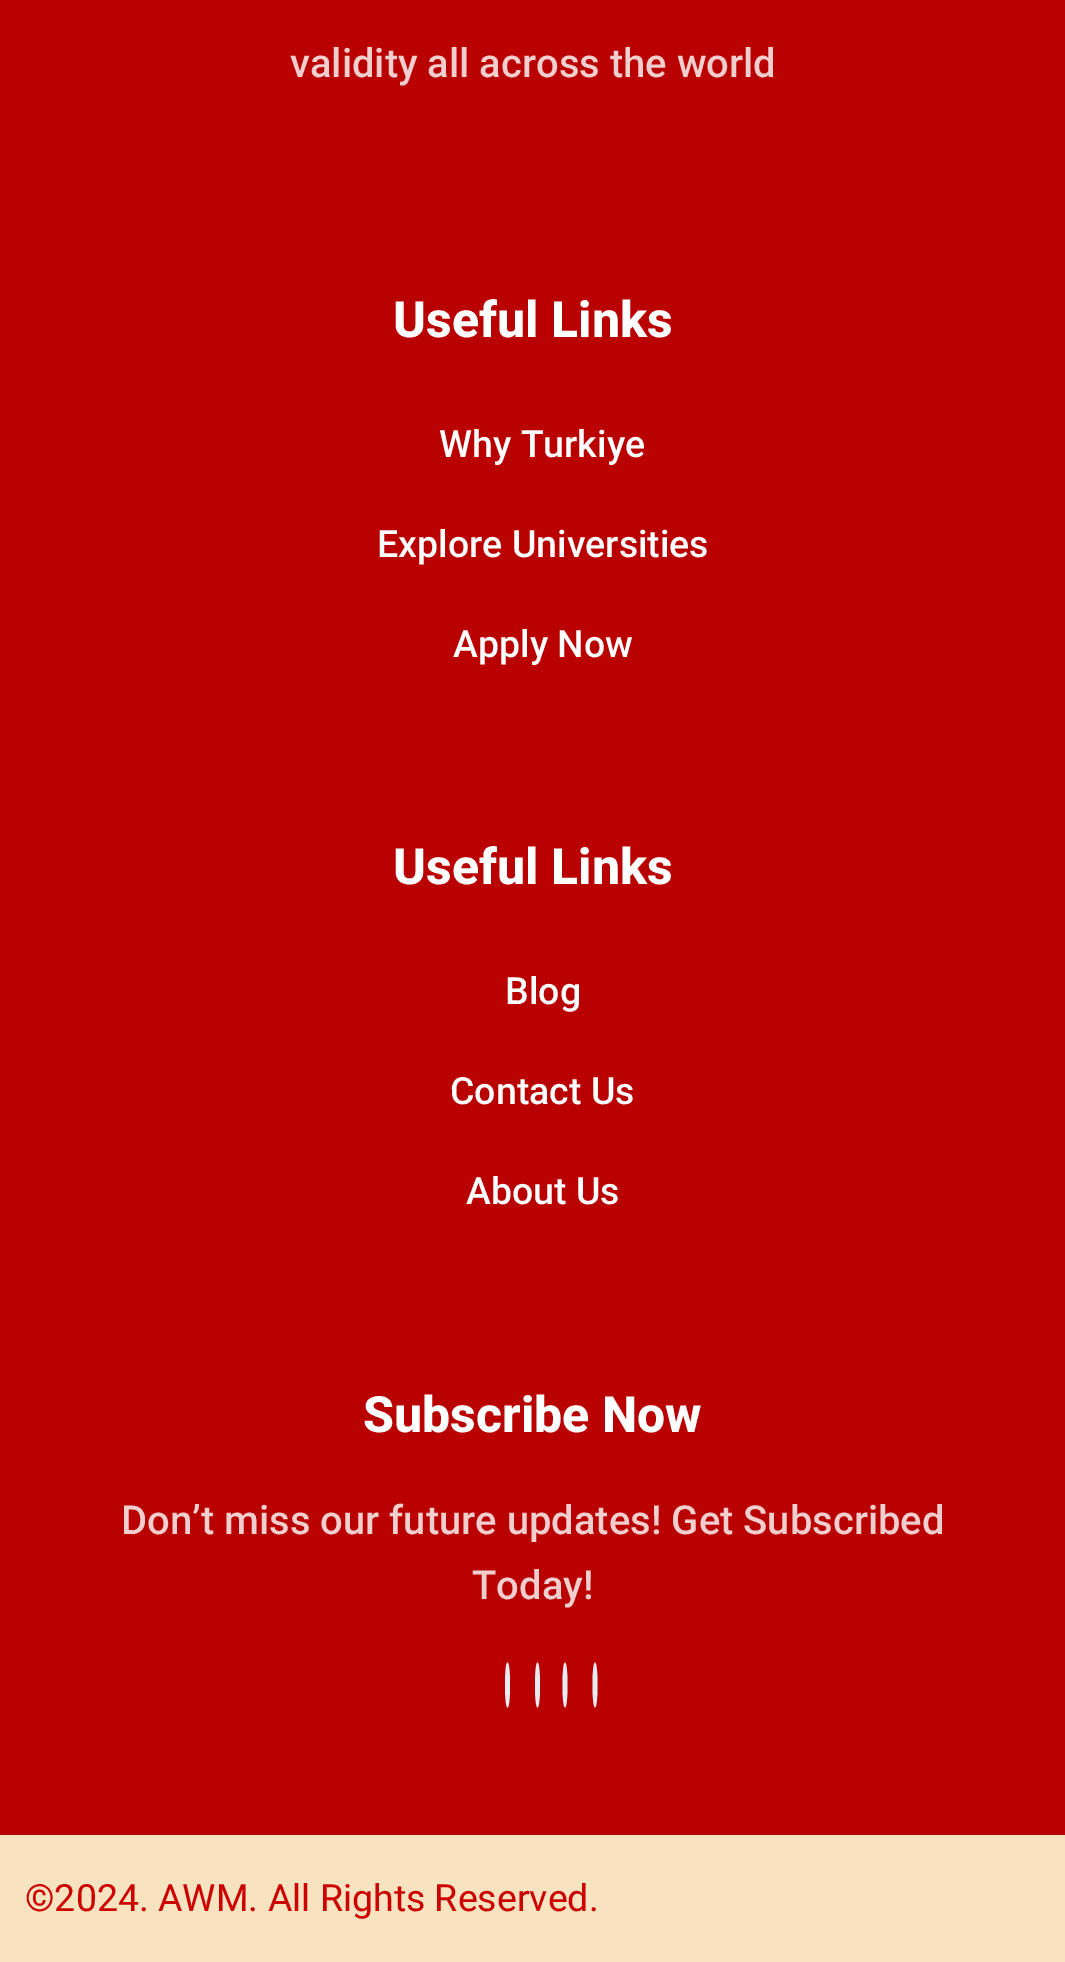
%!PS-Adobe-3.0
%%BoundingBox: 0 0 1065 1962
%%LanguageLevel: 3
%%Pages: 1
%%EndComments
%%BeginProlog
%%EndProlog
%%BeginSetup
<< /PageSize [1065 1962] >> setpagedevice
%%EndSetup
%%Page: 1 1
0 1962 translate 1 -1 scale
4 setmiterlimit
0.722 0.004 0 setrgbcolor
0 0 1065 1962 rectfill
0.918 0.922 0.945 setrgbcolor
newpath 507.5 1662.5 moveto 509 1662.5 510 1672.5 510 1685 curveto 510 1697.5 509 1707.5 507.5 1707.5 curveto 506 1707.5 505 1697.5 505 1685 curveto 505 1672.5 506 1662.5 507.5 1662.5 curveto closepath fill
newpath 537.5 1662.5 moveto 539 1662.5 540 1672.5 540 1685 curveto 540 1697.5 539 1707.5 537.5 1707.5 curveto 536 1707.5 535 1697.5 535 1685 curveto 535 1672.5 536 1662.5 537.5 1662.5 curveto closepath fill
newpath 565 1662.5 moveto 566.5 1662.5 567.5 1672.5 567.5 1685 curveto 567.5 1697.5 566.5 1707.5 565 1707.5 curveto 563.5 1707.5 562.5 1697.5 562.5 1685 curveto 562.5 1672.5 563.5 1662.5 565 1662.5 curveto closepath fill
newpath 595 1662.5 moveto 596.5 1662.5 597.5 1672.5 597.5 1685 curveto 597.5 1697.5 596.5 1707.5 595 1707.5 curveto 593.5 1707.5 592.5 1697.5 592.5 1685 curveto 592.5 1672.5 593.5 1662.5 595 1662.5 curveto closepath fill
0.973 0.89 0.757 setrgbcolor
0 1835 1065 127 rectfill
/Roboto-Medium [40 0 0 -40 0 0] selectfont
0.953 0.808 0.808 setrgbcolor
290 77 moveto (validity all across the world) show
/Roboto-ExtraBold [50 0 0 -50 0 0] selectfont
1 setgray
393 337 moveto (Useful Links) show
/Roboto-Medium [37.5 0 0 -37.5 0 0] selectfont
439 457 moveto (Why Turkiye) show
377 557 moveto (Explore Universities) show
453 657 moveto (Apply Now) show
/Roboto-ExtraBold [50 0 0 -50 0 0] selectfont
393 884 moveto (Useful Links) show
/Roboto-Medium [37.5 0 0 -37.5 0 0] selectfont
505 1004 moveto (Blog) show
450 1104 moveto (Contact Us) show
466 1204 moveto (About Us) show
/Roboto-ExtraBold [50 0 0 -50 0 0] selectfont
363 1432 moveto (Subscribe Now) show
/Roboto-Medium [40 0 0 -40 0 0] selectfont
0.953 0.808 0.808 setrgbcolor
121 1534 moveto (Don’t miss our future updates! Get Subscribed) show
472 1599 moveto (Today!) show
/Roboto-Regular [37.5 0 0 -37.5 0 0] selectfont
0.8 0.004 0 setrgbcolor
25 1911 moveto (©2024. AWM. All Rights Reserved.) show
showpage
%%EOF
